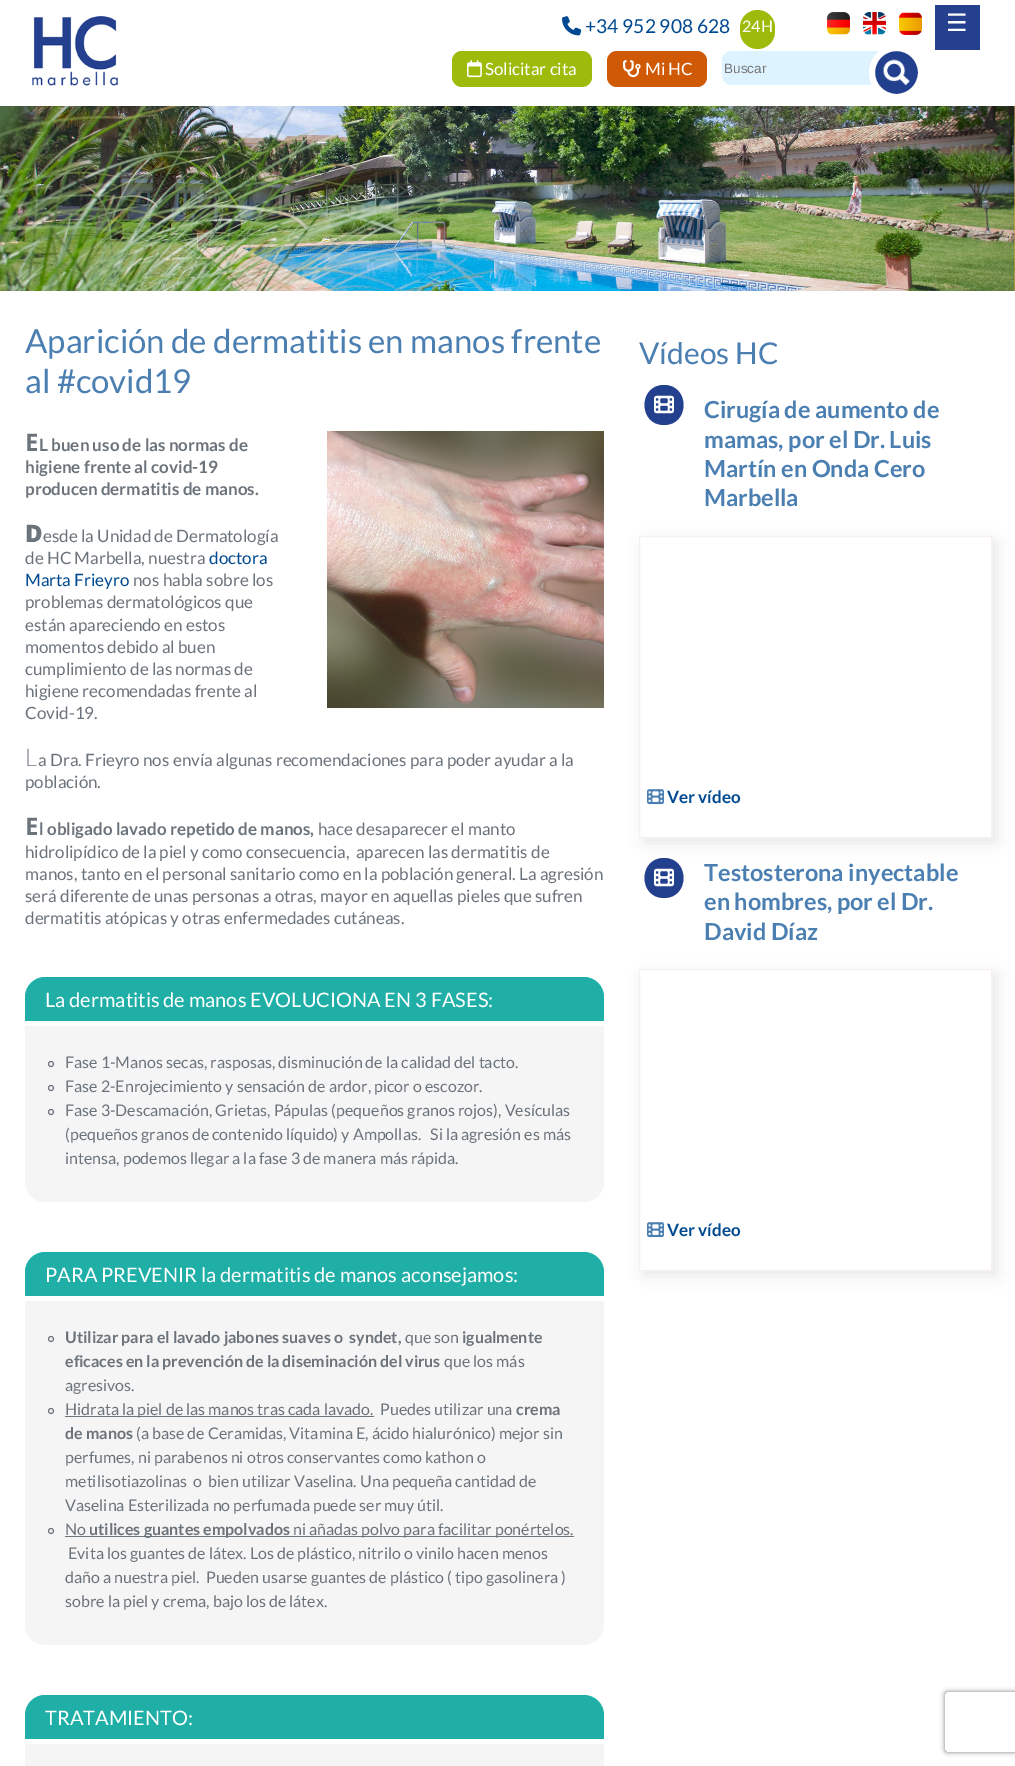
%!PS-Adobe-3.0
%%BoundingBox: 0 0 1015 1766
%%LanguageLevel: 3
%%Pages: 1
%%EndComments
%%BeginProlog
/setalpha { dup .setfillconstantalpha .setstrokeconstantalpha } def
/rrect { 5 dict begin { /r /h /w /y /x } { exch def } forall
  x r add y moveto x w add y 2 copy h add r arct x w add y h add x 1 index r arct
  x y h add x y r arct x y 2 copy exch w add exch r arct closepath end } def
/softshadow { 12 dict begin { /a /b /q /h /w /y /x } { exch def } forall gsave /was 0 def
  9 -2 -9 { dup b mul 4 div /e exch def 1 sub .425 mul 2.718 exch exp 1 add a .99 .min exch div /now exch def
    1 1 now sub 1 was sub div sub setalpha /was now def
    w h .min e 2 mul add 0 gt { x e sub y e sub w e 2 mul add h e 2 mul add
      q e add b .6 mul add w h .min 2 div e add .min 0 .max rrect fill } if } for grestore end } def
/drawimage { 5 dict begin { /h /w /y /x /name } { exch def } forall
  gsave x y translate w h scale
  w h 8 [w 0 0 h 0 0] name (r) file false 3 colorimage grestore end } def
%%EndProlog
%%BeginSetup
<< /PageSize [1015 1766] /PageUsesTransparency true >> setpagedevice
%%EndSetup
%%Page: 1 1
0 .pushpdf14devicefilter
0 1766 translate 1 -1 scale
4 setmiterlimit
1 setgray
0 0 1015 1766 rectfill
(images/1.raw) 32 16 86 70 drawimage
(images/2.raw) 562 16 20 20 drawimage
0.62 0.733 0.043 setrgbcolor
740 10 35 39 17.5 rrect fill
(images/3.raw) 827 12 23 23 drawimage
(images/4.raw) 863 12 23 23 drawimage
(images/5.raw) 899 12 23 23 drawimage
452 51 140 36 10 rrect fill
(images/6.raw) 467 60 15 18 drawimage
0.812 0.349 0.016 setrgbcolor
607 51 100 36 10 rrect fill
(images/7.raw) 623 60 18 18 drawimage
0.867 0.953 1 setrgbcolor
newpath 732 51 moveto 903 51 lineto 903 85 lineto 732 85 lineto 726.5 85 722 80.5 722 75 curveto 722 61 lineto 722 55.5 726.5 51 732 51 curveto closepath fill
0.137 0.251 0.561 setrgbcolor
newpath 896.5 72.5 24.5 0 360 arc closepath gsave fill grestore
1 setgray
6 setlinewidth
stroke
(images/8.raw) 883 59 27 27 drawimage
0.145 0.251 0.561 setrgbcolor
935 5 45 45 rectfill
(images/9.raw) 0 106 1015 185 drawimage
(images/10.raw) 327 431 277 277 drawimage
0.122 0.686 0.651 setrgbcolor
newpath 45 977 moveto 584 977 lineto 595 977 604 986 604 997 curveto 604 1021 lineto 25 1021 lineto 25 997 lineto 25 986 34 977 45 977 curveto closepath fill
0.965 0.961 0.961 setrgbcolor
newpath 25 1026 moveto 604 1026 lineto 604 1182 lineto 604 1193 595 1202 584 1202 curveto 45 1202 lineto 34 1202 25 1193 25 1182 curveto closepath fill
0.42 0.451 0.482 setrgbcolor
1 setlinewidth
newpath 51 1064 2.5 0 360 arc closepath stroke
newpath 51 1088 2.5 0 360 arc closepath stroke
newpath 51 1112 2.5 0 360 arc closepath stroke
0.122 0.686 0.651 setrgbcolor
newpath 45 1252 moveto 584 1252 lineto 595 1252 604 1261 604 1272 curveto 604 1296 lineto 25 1296 lineto 25 1272 lineto 25 1261 34 1252 45 1252 curveto closepath fill
0.965 0.961 0.961 setrgbcolor
newpath 25 1301 moveto 604 1301 lineto 604 1625 lineto 604 1636 595 1645 584 1645 curveto 45 1645 lineto 34 1645 25 1636 25 1625 curveto closepath fill
0.42 0.451 0.482 setrgbcolor
newpath 51 1339 2.5 0 360 arc closepath stroke
newpath 51 1411 2.5 0 360 arc closepath stroke
65 1416 309 1 rectfill
newpath 51 1531 2.5 0 360 arc closepath stroke
65 1536 509 1 rectfill
0.122 0.686 0.651 setrgbcolor
newpath 45 1695 moveto 584 1695 lineto 595 1695 604 1704 604 1715 curveto 604 1739 lineto 25 1739 lineto 25 1715 lineto 25 1704 34 1695 45 1695 curveto closepath fill
0.965 0.961 0.961 setrgbcolor
25 1744 579 22 rectfill
0.137 0.251 0.561 setrgbcolor
newpath 664 425 moveto 690 425 690 385 664 385 curveto 638 385 638 425 664 425 curveto closepath fill
(images/11.raw) 654 395 20 19 drawimage
gsave
newpath 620 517 moveto 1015 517 lineto 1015 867 lineto 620 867 lineto closepath 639 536 moveto 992 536 lineto 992 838 lineto 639 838 lineto closepath eoclip newpath
0.91 setgray
644 541 353 302 0 7.5 1 softshadow
grestore
0.969 0.941 0.941 setrgbcolor
639.5 536.5 352 301 rectstroke
(images/12.raw) 647 789 17 16 drawimage
0.137 0.251 0.561 setrgbcolor
newpath 664 898 moveto 690 898 690 858 664 858 curveto 638 858 638 898 664 898 curveto closepath fill
(images/11.raw) 654 868 20 19 drawimage
gsave
newpath 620 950 moveto 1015 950 lineto 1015 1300 lineto 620 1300 lineto closepath 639 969 moveto 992 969 lineto 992 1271 lineto 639 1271 lineto closepath eoclip newpath
0.91 setgray
644 974 353 302 0 7.5 1 softshadow
grestore
0.969 0.941 0.941 setrgbcolor
639.5 969.5 352 301 rectstroke
(images/12.raw) 647 1222 17 16 drawimage
gsave
newpath 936 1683 moveto 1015 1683 lineto 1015 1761 lineto 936 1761 lineto closepath 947 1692 moveto 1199 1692 lineto 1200 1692 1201 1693 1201 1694 curveto 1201 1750 lineto 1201 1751 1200 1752 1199 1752 curveto 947 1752 lineto 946 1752 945 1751 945 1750 curveto 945 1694 lineto 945 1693 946 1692 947 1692 curveto closepath eoclip newpath
0.502 setgray
945 1692 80 60 2 2.5 1 softshadow
grestore
/Lato-Regular [19.25 0 0 -19.25 0 0] selectfont
0 0.286 0.565 setrgbcolor
585 33 moveto (+34 952 908 628) show
/Lato-Regular [16 0 0 -16 0 0] selectfont
1 setgray
742 32 moveto (24H) show
/Lato-Regular [17 0 0 -17 0 0] selectfont
485 75 moveto (Solicitar cita) show
645 75 moveto (Mi HC) show
/LiberationSans-Regular [13.5 0 0 -13.5 0 0] selectfont
0.459 setgray
724 73 moveto (Buscar) show
/DejaVuSans-Regular [24 0 0 -24 0 0] selectfont
1 setgray
946 31 moveto (☰) show
/Lato-Regular [33 0 0 -33 0 0] selectfont
0.298 0.498 0.694 setrgbcolor
25 353 moveto (Aparición de dermatitis en manos frente) show
25 393 moveto (al #covid19) show
/NotoSans-Bold [24 0 0 -24 0 0] selectfont
0.42 0.451 0.482 setrgbcolor
25 451 moveto (E) show
/Lato-Bold [17 0 0 -17 0 0] selectfont
39 451 moveto (L buen uso de las normas de) show
25 473 moveto (higiene frente al covid-19) show
25 495 moveto (producen dermatitis de manos.) show
/NotoSans-Black [24 0 0 -24 0 0] selectfont
25 542 moveto (D) show
/Lato-Regular [17 0 0 -17 0 0] selectfont
43 542 moveto (esde la Unidad de Dermatología) show
25 564 moveto (de HC Marbella, nuestra) show
0 0.286 0.565 setrgbcolor
209 564 moveto (doctora) show
25 586 moveto (Marta Frieyro) show
0.42 0.451 0.482 setrgbcolor
133 586 moveto (nos habla sobre los) show
25 608 moveto (problemas dermatológicos que) show
25 631 moveto (están apareciendo en estos) show
25 653 moveto (momentos debido al buen) show
25 675 moveto (cumplimiento de las normas de) show
25 697 moveto (higiene recomendadas frente al) show
25 719 moveto (Covid-19.) show
/NotoSans-ExtraLight [24 0 0 -24 0 0] selectfont
25 766 moveto (L) show
/Lato-Regular [17 0 0 -17 0 0] selectfont
38 766 moveto (a Dra. Frieyro nos envía algunas recomendaciones para poder ayudar a la) show
25 788 moveto (población.) show
/NotoSans-Bold [24 0 0 -24 0 0] selectfont
25 835 moveto (E) show
/Lato-Bold [17 0 0 -17 0 0] selectfont
39 835 moveto (l obligado lavado repetido de manos,) show
/Lato-Regular [17 0 0 -17 0 0] selectfont
318 835 moveto (hace desaparecer el manto) show
25 858 moveto (hidrolipídico de la piel y como consecuencia,  aparecen las dermatitis de) show
25 880 moveto (manos, tanto en el personal sanitario como en la población general. La agresión) show
25 902 moveto (será diferente de unas personas a otras, mayor en aquellas pieles que sufren) show
25 924 moveto (dermatitis atópicas y otras enfermedades cutáneas.) show
/Lato-Regular [20 0 0 -20 0 0] selectfont
1 setgray
45 1007 moveto (La dermatitis de manos EVOLUCIONA EN 3 FASES:) show
/Lato-Regular [16 0 0 -16 0 0] selectfont
0.42 0.451 0.482 setrgbcolor
65 1068 moveto (Fase 1-Manos secas, rasposas, disminución de la calidad del tacto.) show
65 1092 moveto (Fase 2-Enrojecimiento y sensación de ardor, picor o escozor.) show
65 1116 moveto (Fase 3-Descamación, Grietas, Pápulas \(pequeños granos rojos\), Vesículas) show
65 1140 moveto (\(pequeños granos de contenido líquido\) y Ampollas.   Si la agresión es más) show
65 1164 moveto (intensa, podemos llegar a la fase 3 de manera más rápida.) show
/Lato-Regular [20 0 0 -20 0 0] selectfont
1 setgray
45 1282 moveto (PARA PREVENIR la dermatitis de manos aconsejamos:) show
/Lato-Bold [16 0 0 -16 0 0] selectfont
0.42 0.451 0.482 setrgbcolor
65 1343 moveto (Utilizar para el lavado jabones suaves o  syndet,) show
/Lato-Regular [16 0 0 -16 0 0] selectfont
405 1343 moveto (que son) show
/Lato-Bold [16 0 0 -16 0 0] selectfont
462 1343 moveto (igualmente) show
65 1367 moveto (eficaces en la prevención de la diseminación del virus) show
/Lato-Regular [16 0 0 -16 0 0] selectfont
444 1367 moveto (que los más) show
65 1391 moveto (agresivos.) show
65 1415 moveto (Hidrata la piel de las manos tras cada lavado.) show
380 1415 moveto (Puedes utilizar una) show
/Lato-Bold [16 0 0 -16 0 0] selectfont
516 1415 moveto (crema) show
65 1439 moveto (de manos) show
/Lato-Regular [16 0 0 -16 0 0] selectfont
136 1439 moveto (\(a base de Ceramidas, Vitamina E, ácido hialurónico\) mejor sin) show
65 1463 moveto (perfumes, ni parabenos ni otros conservantes como kathon o) show
65 1487 moveto (metilisotiazolinas  o  bien utilizar Vaselina. Una pequeña cantidad de) show
65 1511 moveto (Vaselina Esterilizada no perfumada puede ser muy útil.) show
65 1535 moveto (No) show
/Lato-Bold [16 0 0 -16 0 0] selectfont
89 1535 moveto (utilices guantes empolvados) show
/Lato-Regular [16 0 0 -16 0 0] selectfont
293 1535 moveto (ni añadas polvo para facilitar ponértelos.) show
68 1559 moveto (Evita los guantes de látex. Los de plástico, nitrilo o vinilo hacen menos) show
65 1583 moveto (daño a nuestra piel.  Pueden usarse guantes de plástico \( tipo gasolinera \)) show
65 1607 moveto (sobre la piel y crema, bajo los de látex.) show
/Lato-Regular [20 0 0 -20 0 0] selectfont
1 setgray
45 1725 moveto (TRATAMIENTO:) show
/Lato-Regular [30 0 0 -30 0 0] selectfont
0.298 0.498 0.694 setrgbcolor
639 364 moveto (Vídeos HC) show
/Lato-Bold [23.5 0 0 -23.5 0 0] selectfont
704 418 moveto (Cirugía de aumento de) show
704 448 moveto (mamas, por el Dr. Luis) show
704 477 moveto (Martín en Onda Cero) show
704 506 moveto (Marbella) show
/Lato-Bold [17 0 0 -17 0 0] selectfont
0 0.286 0.565 setrgbcolor
667 803 moveto (Ver vídeo) show
/Lato-Bold [23.5 0 0 -23.5 0 0] selectfont
0.298 0.498 0.694 setrgbcolor
704 881 moveto (Testosterona inyectable) show
704 910 moveto (en hombres, por el Dr.) show
704 940 moveto (David Díaz) show
/Lato-Bold [17 0 0 -17 0 0] selectfont
0 0.286 0.565 setrgbcolor
667 1236 moveto (Ver vídeo) show
.poppdf14devicefilter showpage
%%EOF
